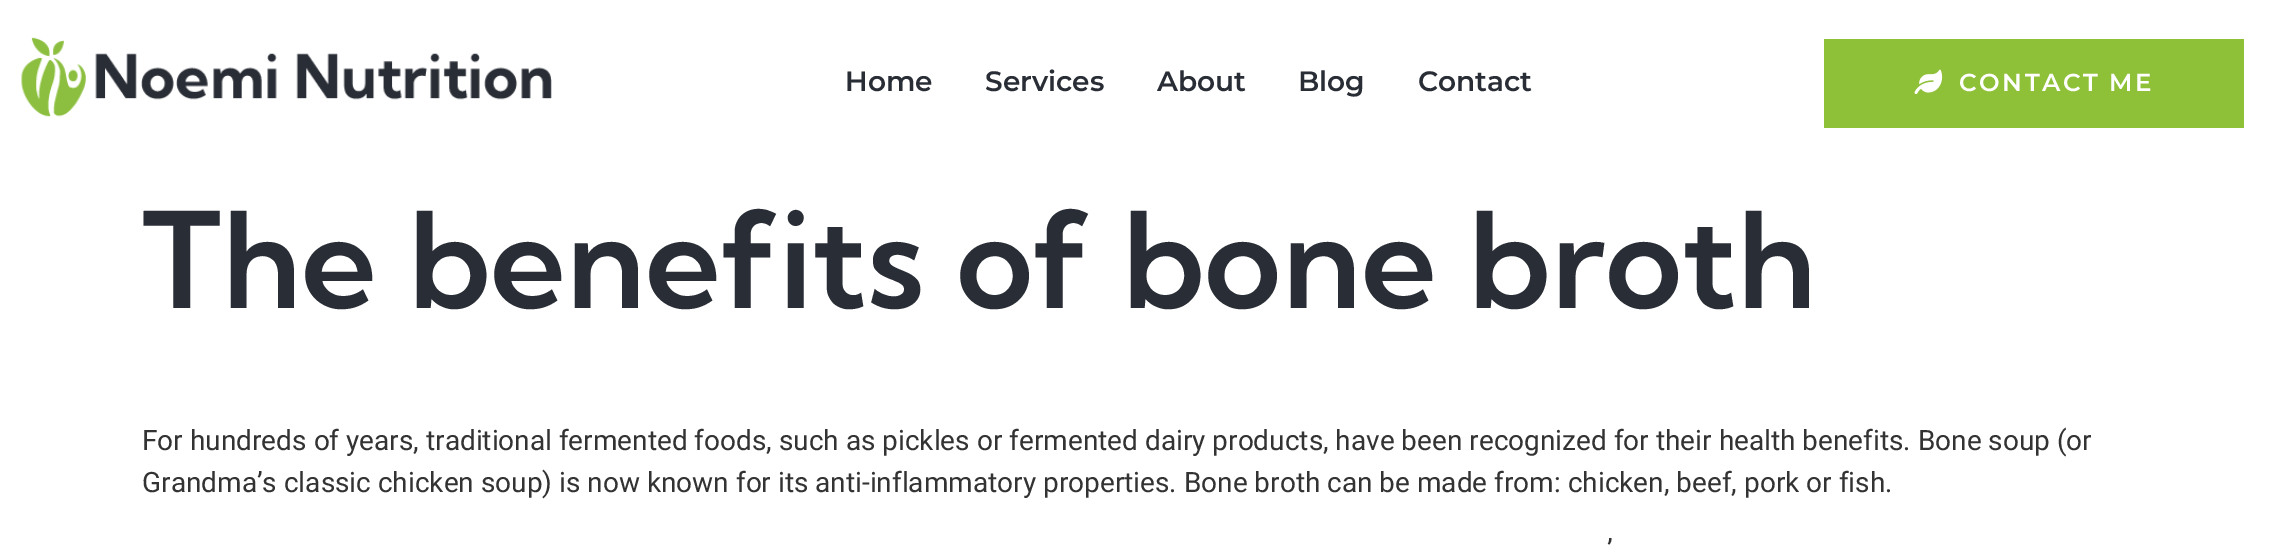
%!PS-Adobe-3.0
%%BoundingBox: 0 0 2278 546
%%LanguageLevel: 3
%%Pages: 1
%%EndComments
%%BeginProlog
/drawimage { 5 dict begin { /h /w /y /x /name } { exch def } forall
  gsave x y translate w h scale
  w h 8 [w 0 0 h 0 0] name (r) file false 3 colorimage grestore end } def
%%EndProlog
%%BeginSetup
<< /PageSize [2278 546] >> setpagedevice
%%EndSetup
%%Page: 1 1
0 546 translate 1 -1 scale
4 setmiterlimit
1 setgray
0 0 2278 546 rectfill
(images/1.raw) 21 37 531 80 drawimage
0.557 0.753 0.22 setrgbcolor
1824 39 420 89 rectfill
(images/2.raw) 1914 69 29 25 drawimage
/Montserrat-SemiBold [28 0 0 -28 0 0] selectfont
0.161 0.176 0.208 setrgbcolor
845 91 moveto (Home) show
985 91 moveto (Services) show
1157 91 moveto (About) show
1298 91 moveto (Blog) show
1418 91 moveto (Contact) show
/Montserrat-SemiBold [24.5 0 0 -24.5 0 0] selectfont
1 setgray
1959 91 moveto 2.5 0 (CONTACT ME) ashow
/KumbhSans-SemiBold [133 0 0 -133 0 0] selectfont
0.161 0.176 0.208 setrgbcolor
142 308 moveto (The benefits of bone broth) show
/Roboto-Regular [28 0 0 -28 0 0] selectfont
0.2 setgray
142 450 moveto (For hundreds of years, traditional fermented foods, such as pickles or fermented dairy products, have been recognized for their health benefits. Bone soup \(or) show
142 492 moveto (Grandma’s classic chicken soup\) is now known for its anti-inflammatory properties. Bone broth can be made from: chicken, beef, pork or fish.) show
1607 559 moveto (’) show
showpage
%%EOF
